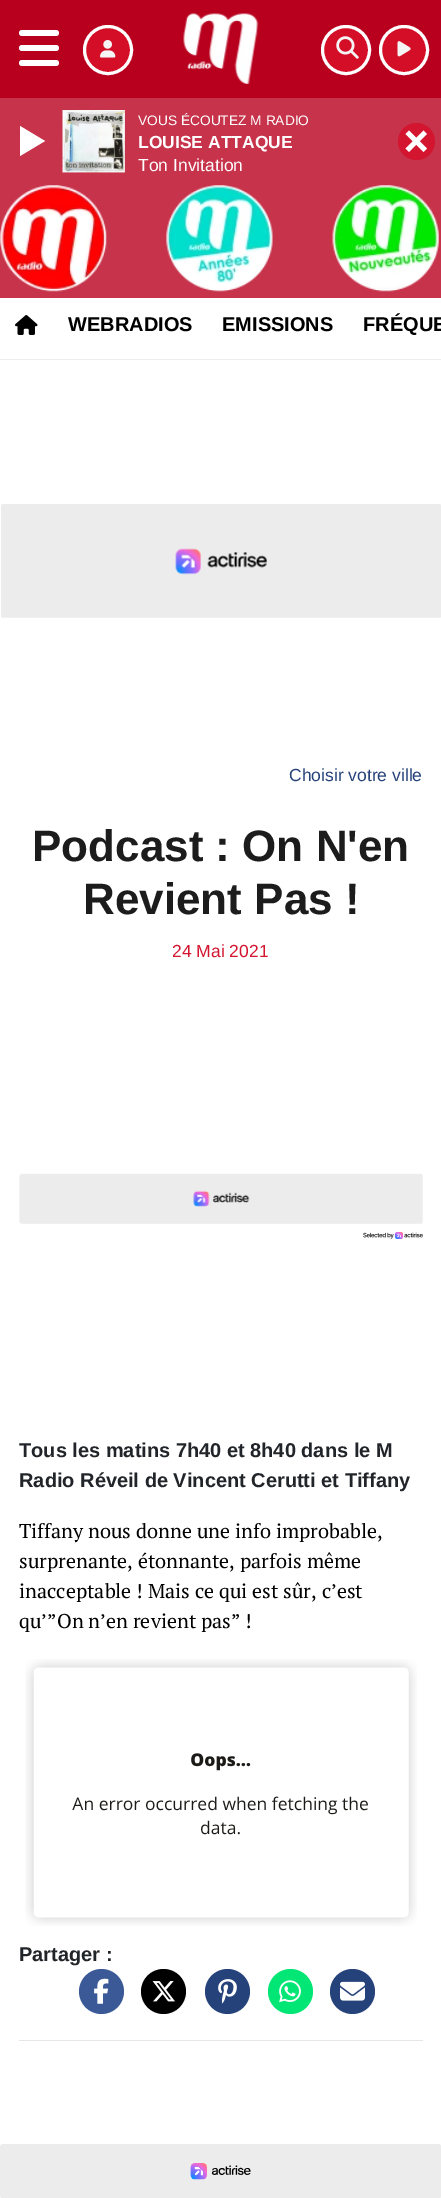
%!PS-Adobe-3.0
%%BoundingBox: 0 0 441 2198
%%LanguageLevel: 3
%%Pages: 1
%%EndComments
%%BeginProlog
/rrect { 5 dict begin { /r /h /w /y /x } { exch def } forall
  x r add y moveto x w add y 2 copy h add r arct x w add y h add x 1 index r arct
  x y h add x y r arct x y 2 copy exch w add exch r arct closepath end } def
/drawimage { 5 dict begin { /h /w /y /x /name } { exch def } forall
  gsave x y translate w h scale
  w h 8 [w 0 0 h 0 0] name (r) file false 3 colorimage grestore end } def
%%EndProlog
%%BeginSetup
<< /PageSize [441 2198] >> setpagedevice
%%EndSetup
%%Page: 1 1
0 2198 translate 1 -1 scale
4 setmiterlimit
1 setgray
0 0 441 2198 rectfill
0.776 0.2 0.294 setrgbcolor
0 98 441 200 rectfill
1 setgray
newpath 20 156 moveto 20 126 lineto 45 141 lineto closepath fill
(images/1.raw) 62 110 63 63 drawimage
0.827 0.082 0.184 setrgbcolor
newpath 416.5 141.5 18.5 0 360 arc closepath fill
1 setgray
newpath 409 130.5 moveto 427 148.5 lineto 423.5 152 lineto 405.5 134 lineto closepath fill
newpath 405.5 148.5 moveto 423.5 130.5 lineto 427 134 lineto 409 152 lineto closepath fill
(images/2.raw) 0 185 107 107 drawimage
(images/3.raw) 166 185 107 107 drawimage
(images/4.raw) 332 185 107 107 drawimage
0.722 0 0.118 setrgbcolor
0 0 441 98 rectfill
1 setgray
19 30 40 6 3 rrect fill
19 45 40 6 3 rrect fill
19 60 40 6 3 rrect fill
0.835 0.055 0.157 setrgbcolor
newpath 108 50 23.5 0 360 arc closepath gsave fill grestore
1 setgray
3 setlinewidth
stroke
(images/5.raw) 100 40 16 18 drawimage
(images/6.raw) 183 13 76 71 drawimage
0.835 0.055 0.157 setrgbcolor
newpath 346 50 23.5 0 360 arc closepath gsave fill grestore
1 setgray
stroke
(images/7.raw) 336 36 23 23 drawimage
0.835 0.055 0.157 setrgbcolor
newpath 404 50 23.5 0 360 arc closepath gsave fill grestore
1 setgray
stroke
(images/8.raw) 397 41 14 16 drawimage
0.933 setgray
0 359 441 1 rectfill
(images/9.raw) 15 315 23 20 drawimage
(images/10.raw) 1 504 440 114 drawimage
(images/11.raw) 19 1173 404 51 drawimage
(images/12.raw) 363 1232 60 7 drawimage
(images/13.raw) 395 1232 8 7 drawimage
(images/14.raw) 25 1659 392 267 drawimage
0.231 0.349 0.592 setrgbcolor
newpath 101.5 1991.5 22.5 0 360 arc closepath fill
(images/15.raw) 94 1978 15 26 drawimage
0 setgray
newpath 163.5 1991.5 22.5 0 360 arc closepath fill
(images/16.raw) 152 1981 23 21 drawimage
0.149 0.259 0.478 setrgbcolor
newpath 227.5 1991.5 22.5 0 360 arc closepath fill
(images/17.raw) 218 1979 19 25 drawimage
0.004 0.902 0.459 setrgbcolor
newpath 290.5 1991.5 22.5 0 360 arc closepath fill
(images/18.raw) 279 1980 22 23 drawimage
0.149 0.259 0.478 setrgbcolor
newpath 352.5 1991.5 22.5 0 360 arc closepath fill
(images/19.raw) 340 1981 25 20 drawimage
0.902 setgray
19 2040 404 1 rectfill
(images/20.raw) 0 2144 441 54 drawimage
/LiberationSans-Regular [13.75 0 0 -13.75 0 0] selectfont
1 setgray
138 125 moveto (VOUS ÉCOUTEZ M RADIO) show
/LiberationSans-Bold [17.5 0 0 -17.5 0 0] selectfont
138 148 moveto (LOUISE ATTAQUE) show
/LiberationSans-Regular [17.5 0 0 -17.5 0 0] selectfont
138 171 moveto (Ton Invitation) show
/LiberationSans-Bold [20 0 0 -20 0 0] selectfont
0 setgray
68 331 moveto (WEBRADIOS) show
222 331 moveto (EMISSIONS) show
363 331 moveto (FRÉQUE) show
/LiberationSans-Regular [17.5 0 0 -17.5 0 0] selectfont
0.149 0.259 0.478 setrgbcolor
289 781 moveto (Choisir votre ville) show
/LiberationSans-Bold [44 0 0 -44 0 0] selectfont
0.11 setgray
32 861 moveto (Podcast : On N'en) show
83 914 moveto (Revient Pas !) show
/LiberationSans-Regular [17.5 0 0 -17.5 0 0] selectfont
0.827 0.082 0.184 setrgbcolor
172 957 moveto (24 Mai 2021) show
/LiberationSans-Bold [20 0 0 -20 0 0] selectfont
0.129 0.145 0.161 setrgbcolor
19 1457 moveto (Tous les matins 7h40 et 8h40 dans le M) show
19 1487 moveto (Radio Réveil de Vincent Cerutti et Tiffany) show
/PTSerif-Regular [20 0 0 -20 0 0] selectfont
0 setgray
19 1538 moveto (Tiffany nous donne une info improbable,) show
19 1568 moveto (surprenante, étonnante, parfois même) show
19 1598 moveto (inacceptable ! Mais ce qui est sûr, c’est) show
19 1628 moveto (qu’”On n’en revient pas” !) show
/LiberationSans-Bold [20 0 0 -20 0 0] selectfont
0.129 0.145 0.161 setrgbcolor
19 1961 moveto (Partager :) show
showpage
%%EOF
